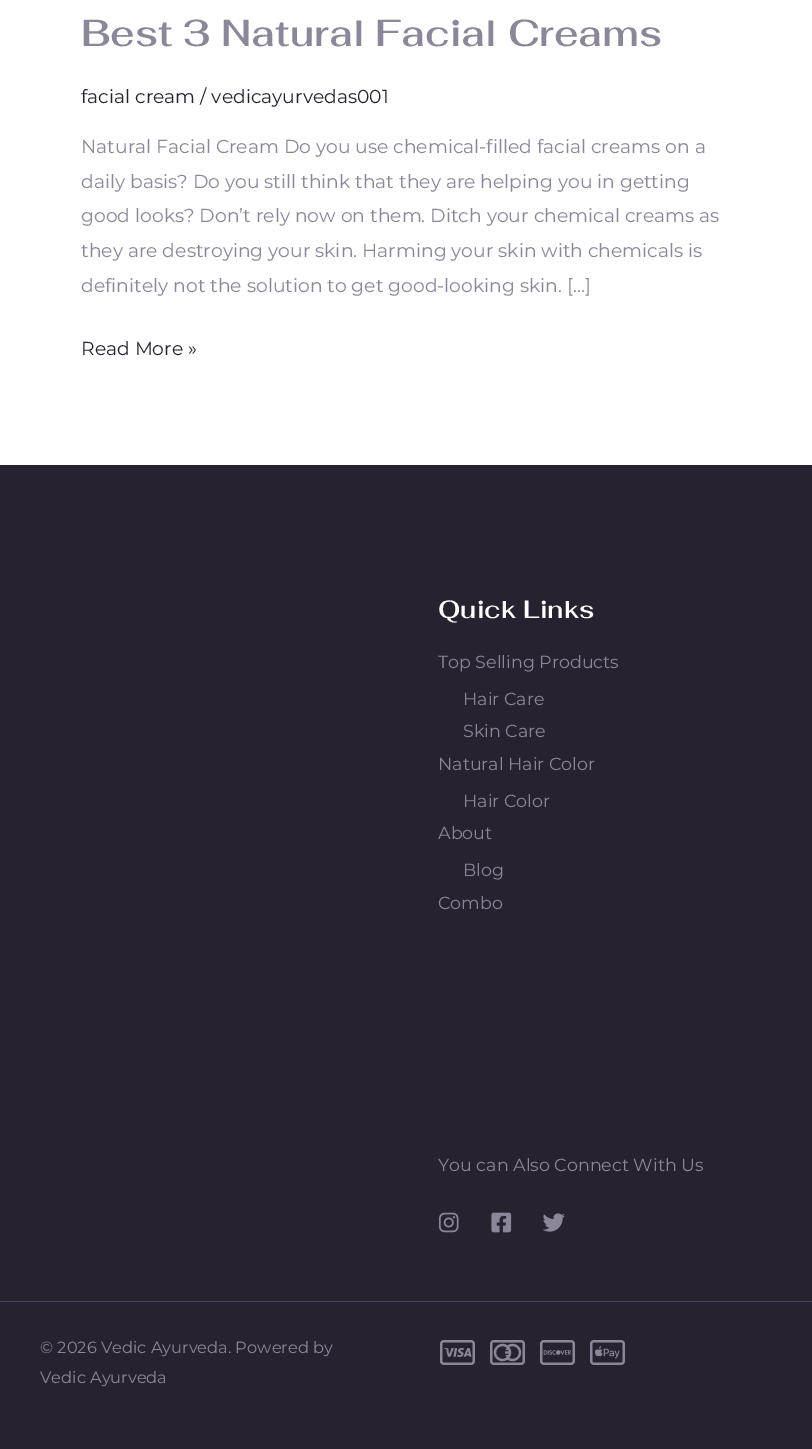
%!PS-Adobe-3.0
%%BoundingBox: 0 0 812 1449
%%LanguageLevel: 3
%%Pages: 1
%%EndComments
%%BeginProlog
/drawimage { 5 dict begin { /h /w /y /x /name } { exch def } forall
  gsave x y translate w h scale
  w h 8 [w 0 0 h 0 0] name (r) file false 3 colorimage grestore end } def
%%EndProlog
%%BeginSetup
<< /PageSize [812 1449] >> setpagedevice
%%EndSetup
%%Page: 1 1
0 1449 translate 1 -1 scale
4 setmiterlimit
1 setgray
0 0 812 1449 rectfill
0.149 0.133 0.184 setrgbcolor
0 465 812 984 rectfill
(images/1.raw) 439 1212 20 21 drawimage
(images/2.raw) 491 1212 21 21 drawimage
(images/3.raw) 543 1213 22 19 drawimage
0.298 0.271 0.373 setrgbcolor
0 1301 812 1 rectfill
(images/4.raw) 440 1340 35 25 drawimage
(images/5.raw) 490 1340 35 25 drawimage
(images/6.raw) 540 1340 35 25 drawimage
(images/7.raw) 590 1340 35 25 drawimage
/Fahkwang-SemiBold [37.5 0 0 -37.5 0 0] selectfont
0.545 0.525 0.596 setrgbcolor
81 46 moveto (Best 3 Natural Facial Creams) show
/Montserrat-Regular [18.75 0 0 -18.75 0 0] selectfont
0.149 0.133 0.184 setrgbcolor
81 103 moveto (facial cream / vedicayurvedas001) show
0.545 0.525 0.596 setrgbcolor
81 153 moveto (Natural Facial Cream Do you use chemical-filled facial creams on a) show
81 188 moveto (daily basis? Do you still think that they are helping you in getting) show
81 222 moveto (good looks? Don’t rely now on them. Ditch your chemical creams as) show
81 257 moveto (they are destroying your skin. Harming your skin with chemicals is) show
81 292 moveto (definitely not the solution to get good-looking skin. […]) show
0.149 0.133 0.184 setrgbcolor
81 355 moveto (Read More ») show
/Fahkwang-SemiBold [25 0 0 -25 0 0] selectfont
1 setgray
438 618 moveto (Quick Links) show
/Montserrat-Regular [17.5 0 0 -17.5 0 0] selectfont
0.545 0.525 0.596 setrgbcolor
438 668 moveto (Top Selling Products) show
463 705 moveto (Hair Care) show
463 737 moveto (Skin Care) show
438 770 moveto (Natural Hair Color) show
463 807 moveto (Hair Color) show
438 839 moveto (About) show
463 876 moveto (Blog) show
438 909 moveto (Combo) show
438 1171 moveto (You can Also Connect With Us) show
/Montserrat-Regular [16.25 0 0 -16.25 0 0] selectfont
40 1353 moveto (© 2026 Vedic Ayurveda. Powered by) show
40 1383 moveto (Vedic Ayurveda) show
showpage
%%EOF
